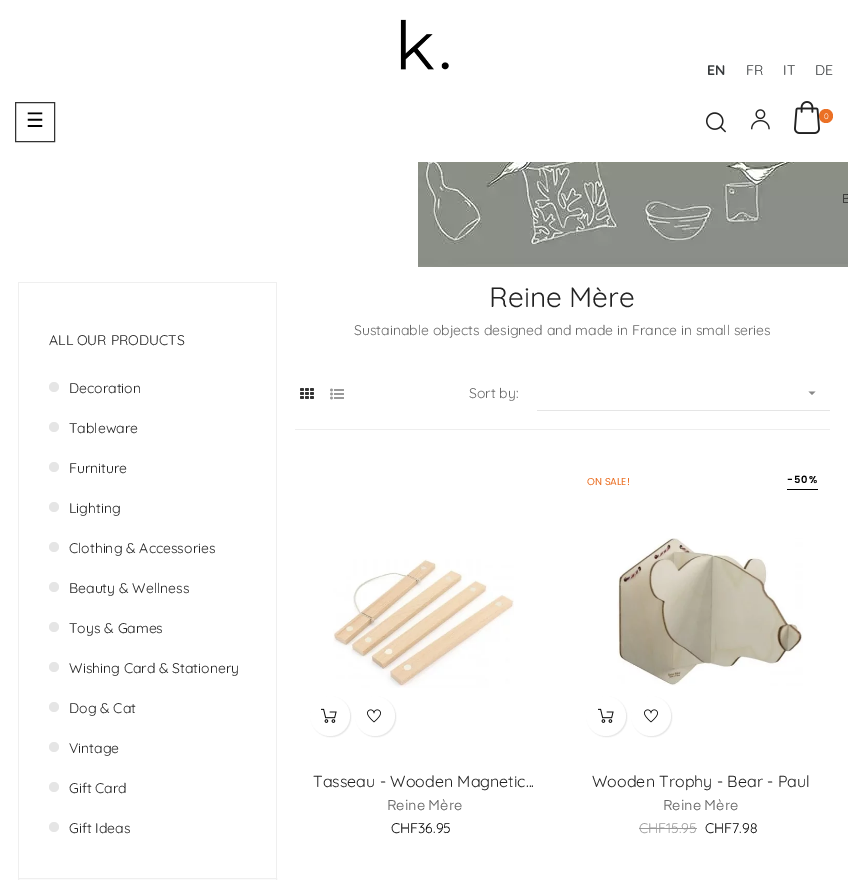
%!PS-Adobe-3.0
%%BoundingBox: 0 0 848 880
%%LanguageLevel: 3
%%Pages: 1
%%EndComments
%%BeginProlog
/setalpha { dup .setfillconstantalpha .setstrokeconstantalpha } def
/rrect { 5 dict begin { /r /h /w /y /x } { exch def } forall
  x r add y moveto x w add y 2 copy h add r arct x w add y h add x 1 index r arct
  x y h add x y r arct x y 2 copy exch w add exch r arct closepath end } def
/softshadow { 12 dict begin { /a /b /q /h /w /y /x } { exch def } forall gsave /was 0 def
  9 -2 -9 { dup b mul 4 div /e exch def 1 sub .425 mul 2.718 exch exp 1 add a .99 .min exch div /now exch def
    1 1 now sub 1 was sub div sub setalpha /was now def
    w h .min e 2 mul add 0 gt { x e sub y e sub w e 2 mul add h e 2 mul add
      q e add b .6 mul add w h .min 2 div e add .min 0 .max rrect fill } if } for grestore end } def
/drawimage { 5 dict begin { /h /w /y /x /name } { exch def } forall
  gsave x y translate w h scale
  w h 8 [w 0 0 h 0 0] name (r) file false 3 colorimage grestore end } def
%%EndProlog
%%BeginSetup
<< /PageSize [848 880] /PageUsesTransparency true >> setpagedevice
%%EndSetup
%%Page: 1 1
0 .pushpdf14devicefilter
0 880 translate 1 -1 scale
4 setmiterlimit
1 setgray
0 0 848 880 rectfill
(images/1.raw) 400 19 49 51 drawimage
0.2 setgray
15.5 102.5 39 39 rectstroke
(images/2.raw) 706 112 20 21 drawimage
(images/3.raw) 751 109 19 21 drawimage
0.922 0.439 0.145 setrgbcolor
newpath 826 116 7 0 360 arc closepath fill
(images/4.raw) 794 101 26 33 drawimage
(images/5.raw) 418 162 430 105 drawimage
0.937 setgray
18 282 259 1 rectfill
276 282 1 596 rectfill
18 282 1 596 rectfill
0.898 setgray
newpath 54 387 5 0 360 arc closepath fill
newpath 54 427 5 0 360 arc closepath fill
newpath 54 467 5 0 360 arc closepath fill
newpath 54 507 5 0 360 arc closepath fill
newpath 54 547 5 0 360 arc closepath fill
newpath 54 587 5 0 360 arc closepath fill
newpath 54 627 5 0 360 arc closepath fill
newpath 54 667 5 0 360 arc closepath fill
newpath 54 707 5 0 360 arc closepath fill
newpath 54 747 5 0 360 arc closepath fill
newpath 54 787 5 0 360 arc closepath fill
newpath 54 827 5 0 360 arc closepath fill
0.937 setgray
18.5 878.5 258 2 rectstroke
0.933 setgray
295 429 535 1 rectfill
(images/6.raw) 300 388 14 11 drawimage
(images/7.raw) 330 388 14 12 drawimage
0.898 setgray
537 410 293 1 rectfill
0.533 setgray
newpath 808.5 391.5 moveto 815.5 391.5 lineto 812 395 lineto closepath fill
(images/8.raw) 333 559 181 129 drawimage
gsave
newpath 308 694 moveto 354 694 lineto 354 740 lineto 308 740 lineto closepath 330 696 moveto 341 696 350 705 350 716 curveto 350 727 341 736 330 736 curveto 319 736 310 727 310 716 curveto 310 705 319 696 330 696 curveto closepath eoclip newpath
0 setgray
311 697 40 40 20 0.5 0.1 softshadow
grestore
0.95 setalpha
1 setgray
newpath 330 716 20 0 360 arc closepath fill
1 setalpha
(images/9.raw) 321 708 16 15 drawimage
gsave
newpath 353 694 moveto 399 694 lineto 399 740 lineto 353 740 lineto closepath 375 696 moveto 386 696 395 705 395 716 curveto 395 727 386 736 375 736 curveto 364 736 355 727 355 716 curveto 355 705 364 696 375 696 curveto closepath eoclip newpath
0 setgray
356 697 40 40 20 0.5 0.1 softshadow
grestore
0.95 setalpha
newpath 375 716 20 0 360 arc closepath fill
1 setalpha
(images/10.raw) 367 709 14 14 drawimage
0 setgray
787 489 31 1 rectfill
0.6 setgray
639 828 58 1 rectfill
(images/11.raw) 617 538 186 148 drawimage
gsave
newpath 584 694 moveto 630 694 lineto 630 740 lineto 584 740 lineto closepath 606 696 moveto 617 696 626 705 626 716 curveto 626 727 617 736 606 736 curveto 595 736 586 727 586 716 curveto 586 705 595 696 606 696 curveto closepath eoclip newpath
0 setgray
587 697 40 40 20 0.5 0.1 softshadow
grestore
0.95 setalpha
1 setgray
newpath 606 716 20 0 360 arc closepath fill
1 setalpha
(images/9.raw) 598 708 16 15 drawimage
gsave
newpath 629 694 moveto 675 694 lineto 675 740 lineto 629 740 lineto closepath 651 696 moveto 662 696 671 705 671 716 curveto 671 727 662 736 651 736 curveto 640 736 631 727 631 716 curveto 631 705 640 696 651 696 curveto closepath eoclip newpath
0 setgray
632 697 40 40 20 0.5 0.1 softshadow
grestore
0.95 setalpha
newpath 651 716 20 0 360 arc closepath fill
1 setalpha
(images/10.raw) 644 709 14 14 drawimage
/DejaVuSans-Regular [20 0 0 -20 0 0] selectfont
0 setgray
26 127 moveto (☰) show
/Quicksand-Bold [14 0 0 -14 0 0] selectfont
0.216 0.227 0.235 setrgbcolor
707 75 moveto (EN) show
/Quicksand-Light [14 0 0 -14 0 0] selectfont
746 75 moveto (FR) show
783 75 moveto (IT) show
815 75 moveto (DE) show
/Quicksand-Light [8 0 0 -8 0 0] selectfont
1 setgray
824 119 moveto (0) show
/Quicksand-Light [13 0 0 -13 0 0] selectfont
0.133 setgray
842 203 moveto (B) show
/Quicksand-Light [14 0 0 -14 0 0] selectfont
49 345 moveto (ALL OUR PRODUCTS) show
69 393 moveto (Decoration) show
69 433 moveto (Tableware) show
69 473 moveto (Furniture) show
69 513 moveto (Lighting) show
69 553 moveto (Clothing & Accessories) show
69 593 moveto (Beauty & Wellness) show
69 633 moveto (Toys & Games) show
69 673 moveto (Wishing Card & Stationery) show
69 713 moveto (Dog & Cat) show
69 753 moveto (Vintage) show
69 793 moveto (Gift Card) show
69 833 moveto (Gift Ideas) show
/Quicksand-Light [28 0 0 -28 0 0] selectfont
489 307 moveto (Reine Mère) show
/Quicksand-Light [14 0 0 -14 0 0] selectfont
0.4 setgray
354 335 moveto (Sustainable objects designed and made in France in small series) show
469 398 moveto (Sort by:) show
/Quicksand-Light [16 0 0 -16 0 0] selectfont
0.133 setgray
313 787 moveto (Tasseau - Wooden Magnetic...) show
/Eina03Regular-Regular [14 0 0 -14 0 0] selectfont
0.4 setgray
387 810 moveto (Reine Mère) show
/Quicksand-Light [14 0 0 -14 0 0] selectfont
0 setgray
391 833 moveto (CHF36.95) show
/Poppins-SemiBold [10 0 0 -10 0 0] selectfont
787 483 moveto 1 0 (-50%) ashow
/Quicksand-Light [14 0 0 -14 0 0] selectfont
0.6 setgray
639 833 moveto (CHF15.95) show
0 setgray
705 833 moveto (CHF7.98) show
/Quicksand-Light [16 0 0 -16 0 0] selectfont
0.133 setgray
592 787 moveto (Wooden Trophy - Bear - Paul) show
/Eina03Regular-Regular [14 0 0 -14 0 0] selectfont
0.4 setgray
663 810 moveto (Reine Mère) show
/Poppins-Regular [10 0 0 -10 0 0] selectfont
0.922 0.439 0.145 setrgbcolor
587 485 moveto (ON SALE!) show
.poppdf14devicefilter showpage
%%EOF
